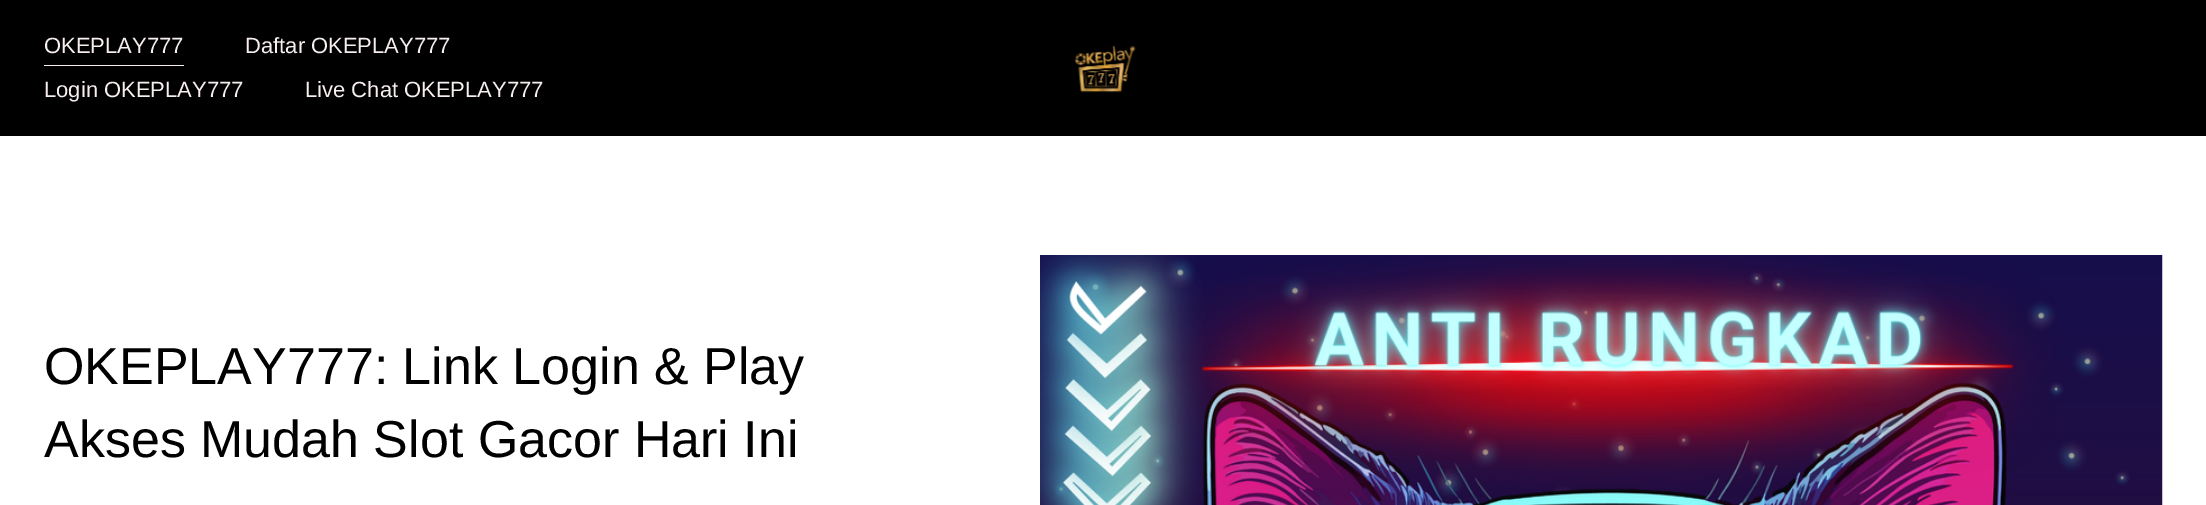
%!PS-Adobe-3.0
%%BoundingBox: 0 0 2206 505
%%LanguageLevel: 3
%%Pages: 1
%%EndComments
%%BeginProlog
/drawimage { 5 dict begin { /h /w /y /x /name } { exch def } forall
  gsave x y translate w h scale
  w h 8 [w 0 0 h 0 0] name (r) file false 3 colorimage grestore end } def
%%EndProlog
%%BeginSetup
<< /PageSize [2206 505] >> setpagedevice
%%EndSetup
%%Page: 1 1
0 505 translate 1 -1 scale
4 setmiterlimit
1 setgray
0 0 2206 505 rectfill
0 setgray
0 0 2206 136 rectfill
0.969 0.933 0.933 setrgbcolor
44 65 140 1 rectfill
(images/1.raw) 1074 45 62 48 drawimage
(images/2.raw) 1040 255 1123 250 drawimage
/LiberationSans-Regular [22 0 0 -22 0 0] selectfont
44 53 moveto (OKEPLAY777) show
245 53 moveto (Daftar OKEPLAY777) show
44 97 moveto (Login OKEPLAY777) show
305 97 moveto (Live Chat OKEPLAY777) show
/LiberationSans-Regular [52 0 0 -52 0 0] selectfont
0 setgray
44 384 moveto (OKEPLAY777: Link Login & Play) show
44 457 moveto (Akses Mudah Slot Gacor Hari Ini) show
showpage
%%EOF
